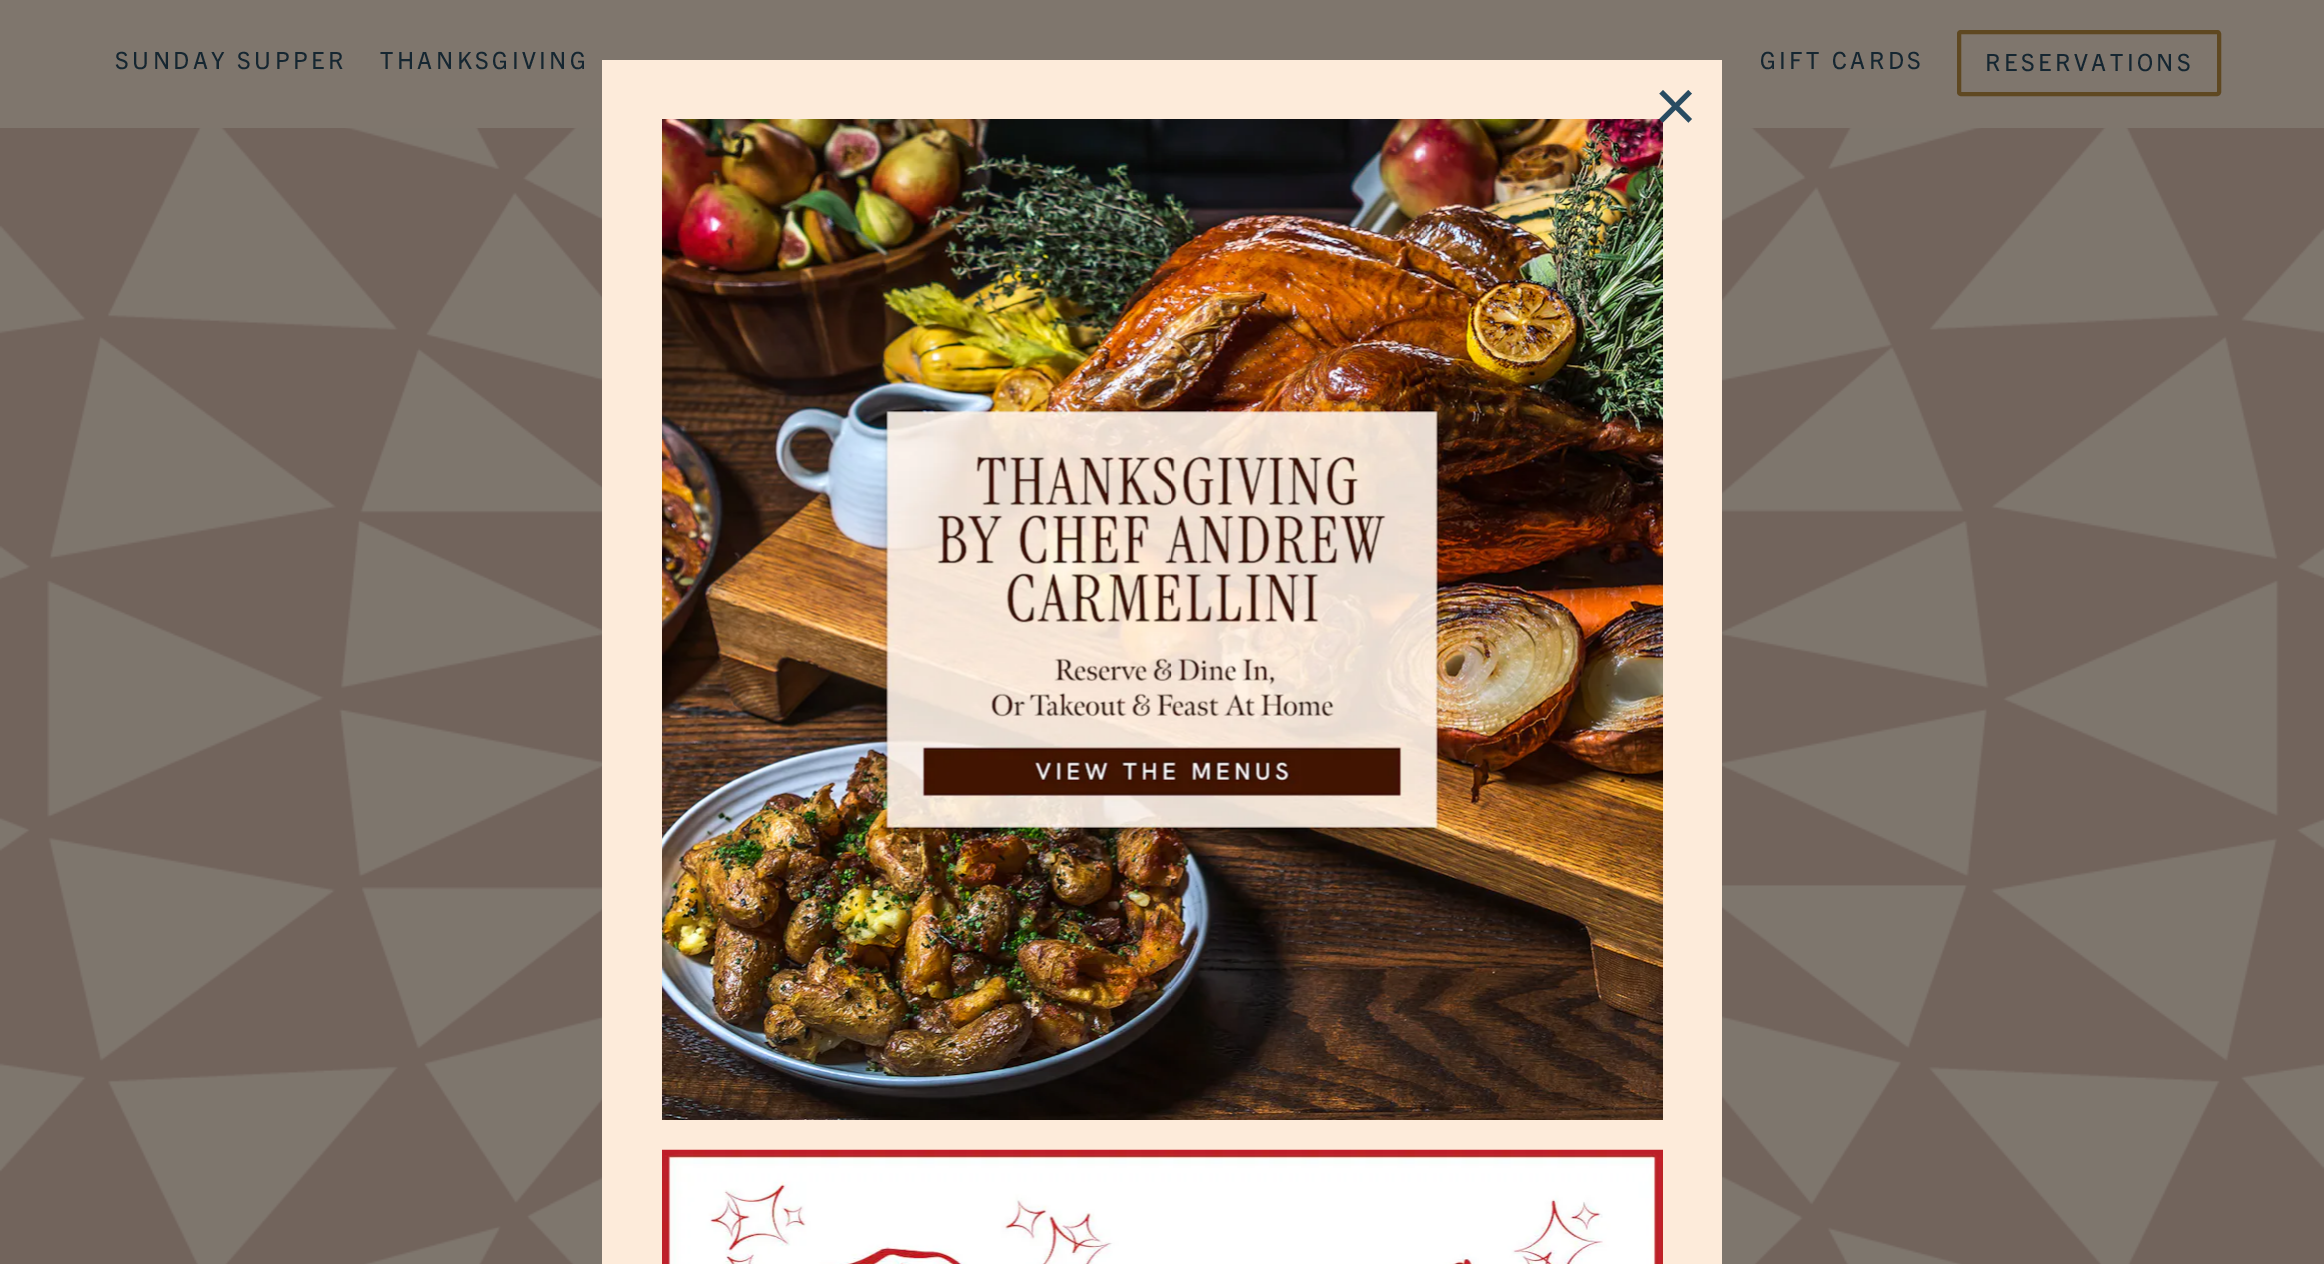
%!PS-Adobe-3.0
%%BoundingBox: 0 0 2324 1264
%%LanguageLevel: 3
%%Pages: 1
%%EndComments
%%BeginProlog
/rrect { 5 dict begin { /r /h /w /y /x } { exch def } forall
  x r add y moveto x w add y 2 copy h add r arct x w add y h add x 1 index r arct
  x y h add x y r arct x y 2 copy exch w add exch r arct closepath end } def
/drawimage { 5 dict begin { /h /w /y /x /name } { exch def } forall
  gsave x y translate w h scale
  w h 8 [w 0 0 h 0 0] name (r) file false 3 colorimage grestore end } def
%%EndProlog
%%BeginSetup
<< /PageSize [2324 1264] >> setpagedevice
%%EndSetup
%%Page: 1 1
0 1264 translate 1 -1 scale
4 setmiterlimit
0.498 0.463 0.427 setrgbcolor
0 0 2324 1264 rectfill
0.373 0.282 0.129 setrgbcolor
4 setlinewidth
1959 32 260 62 2 rrect stroke
(images/3.raw) 0 128 2324 1136 drawimage
0.992 0.922 0.855 setrgbcolor
602 60 1120 1204 rectfill
(images/1.raw) 662 119 1001 1001 drawimage
(images/2.raw) 662 1149 1001 115 drawimage
/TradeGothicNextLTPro-Regular [23.75 0 0 -23.75 0 0] selectfont
0.082 0.149 0.192 setrgbcolor
115 69 moveto 3.5 0 (SUNDAY SUPPER) ashow
380 69 moveto 3.5 0 (THANKSGIVING) ashow
1760 69 moveto 3.5 0 (GIFT CARDS) ashow
1985 71 moveto 3.5 0 (RESERVATIONS) ashow
/LiberationSans-Regular [74 0 0 -74 0 0] selectfont
0.161 0.298 0.384 setrgbcolor
1654 131 moveto (×) show
showpage
%%EOF
